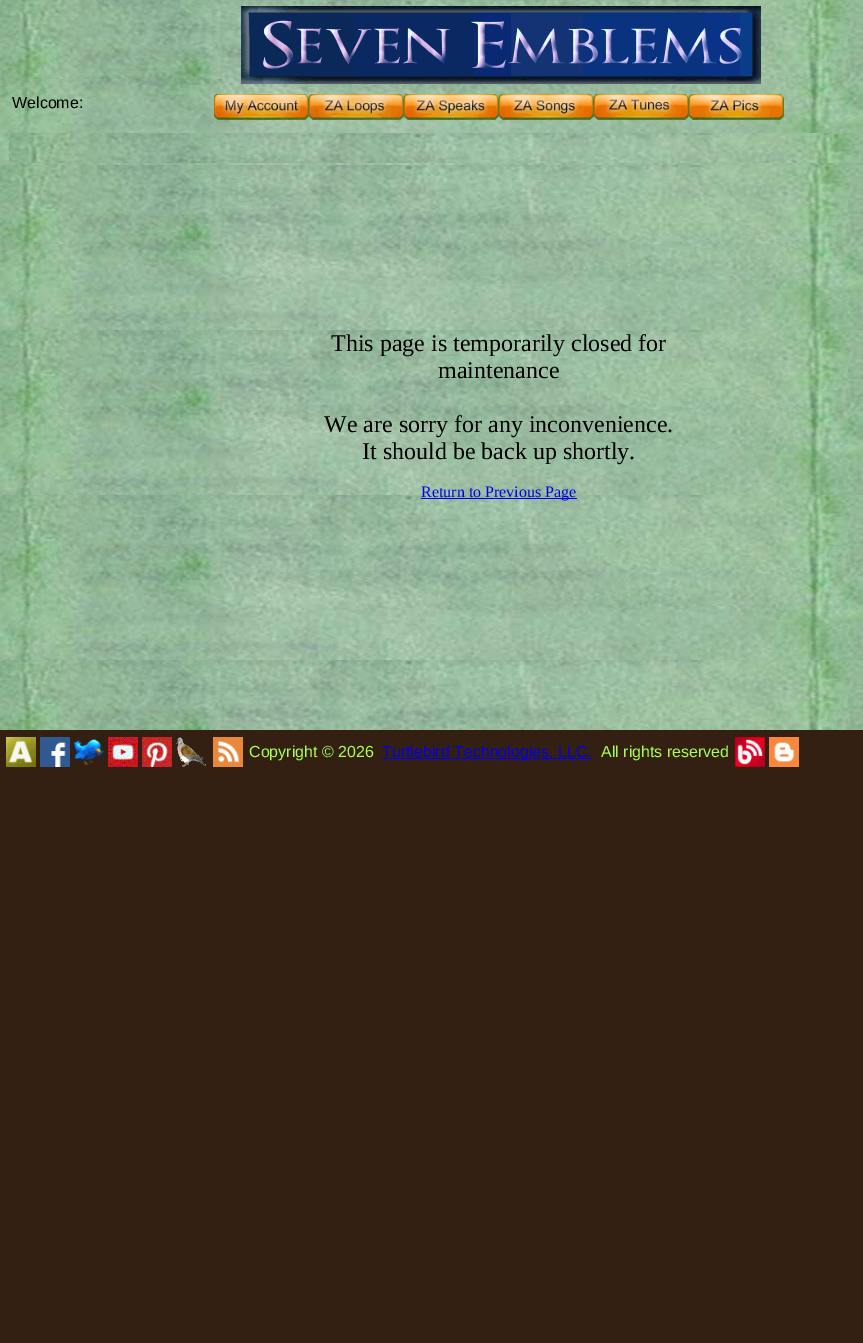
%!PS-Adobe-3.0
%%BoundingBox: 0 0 863 1343
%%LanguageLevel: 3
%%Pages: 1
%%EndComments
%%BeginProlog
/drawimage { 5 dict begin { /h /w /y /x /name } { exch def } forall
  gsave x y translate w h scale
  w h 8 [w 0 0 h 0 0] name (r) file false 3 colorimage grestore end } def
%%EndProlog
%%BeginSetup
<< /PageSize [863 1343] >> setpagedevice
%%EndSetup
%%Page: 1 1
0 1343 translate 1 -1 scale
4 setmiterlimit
0.2 0.125 0.075 setrgbcolor
0 0 863 1343 rectfill
(images/1.raw) 0 0 863 730 drawimage
(images/2.raw) 241 6 520 78 drawimage
(images/3.raw) 214 94 95 26 drawimage
(images/4.raw) 309 94 95 26 drawimage
(images/5.raw) 404 94 95 26 drawimage
(images/6.raw) 499 94 95 26 drawimage
(images/7.raw) 594 94 95 26 drawimage
(images/8.raw) 689 94 95 26 drawimage
(images/9.raw) 9 133 854 30 drawimage
0 0 0.933 setrgbcolor
421 498 156 1 rectfill
(images/10.raw) 6 737 30 30 drawimage
(images/11.raw) 40 737 30 30 drawimage
(images/12.raw) 74 739 30 26 drawimage
(images/13.raw) 108 737 30 30 drawimage
(images/14.raw) 142 737 30 30 drawimage
(images/15.raw) 176 737 30 30 drawimage
(images/16.raw) 213 737 30 30 drawimage
382 758 210 1 rectfill
(images/17.raw) 735 737 30 30 drawimage
(images/18.raw) 769 737 30 30 drawimage
/LiberationSans-Regular [16 0 0 -16 0 0] selectfont
0 setgray
12 108 moveto (Welcome:) show
/LiberationSerif-Regular [24 0 0 -24 0 0] selectfont
331 351 moveto (This page is temporarily closed for) show
438 378 moveto (maintenance) show
324 432 moveto (We are sorry for any inconvenience.) show
362 459 moveto (It should be back up shortly.) show
/LiberationSerif-Regular [16 0 0 -16 0 0] selectfont
0 0 0.933 setrgbcolor
421 497 moveto (Return to Previous Page) show
/LiberationSans-Regular [16 0 0 -16 0 0] selectfont
0.659 1 0.318 setrgbcolor
249 757 moveto (Copyright © 2026) show
0 0 0.933 setrgbcolor
382 757 moveto (Turtlebird Technologies, LLC.) show
0.659 1 0.318 setrgbcolor
601 757 moveto (All rights reserved) show
showpage
%%EOF
